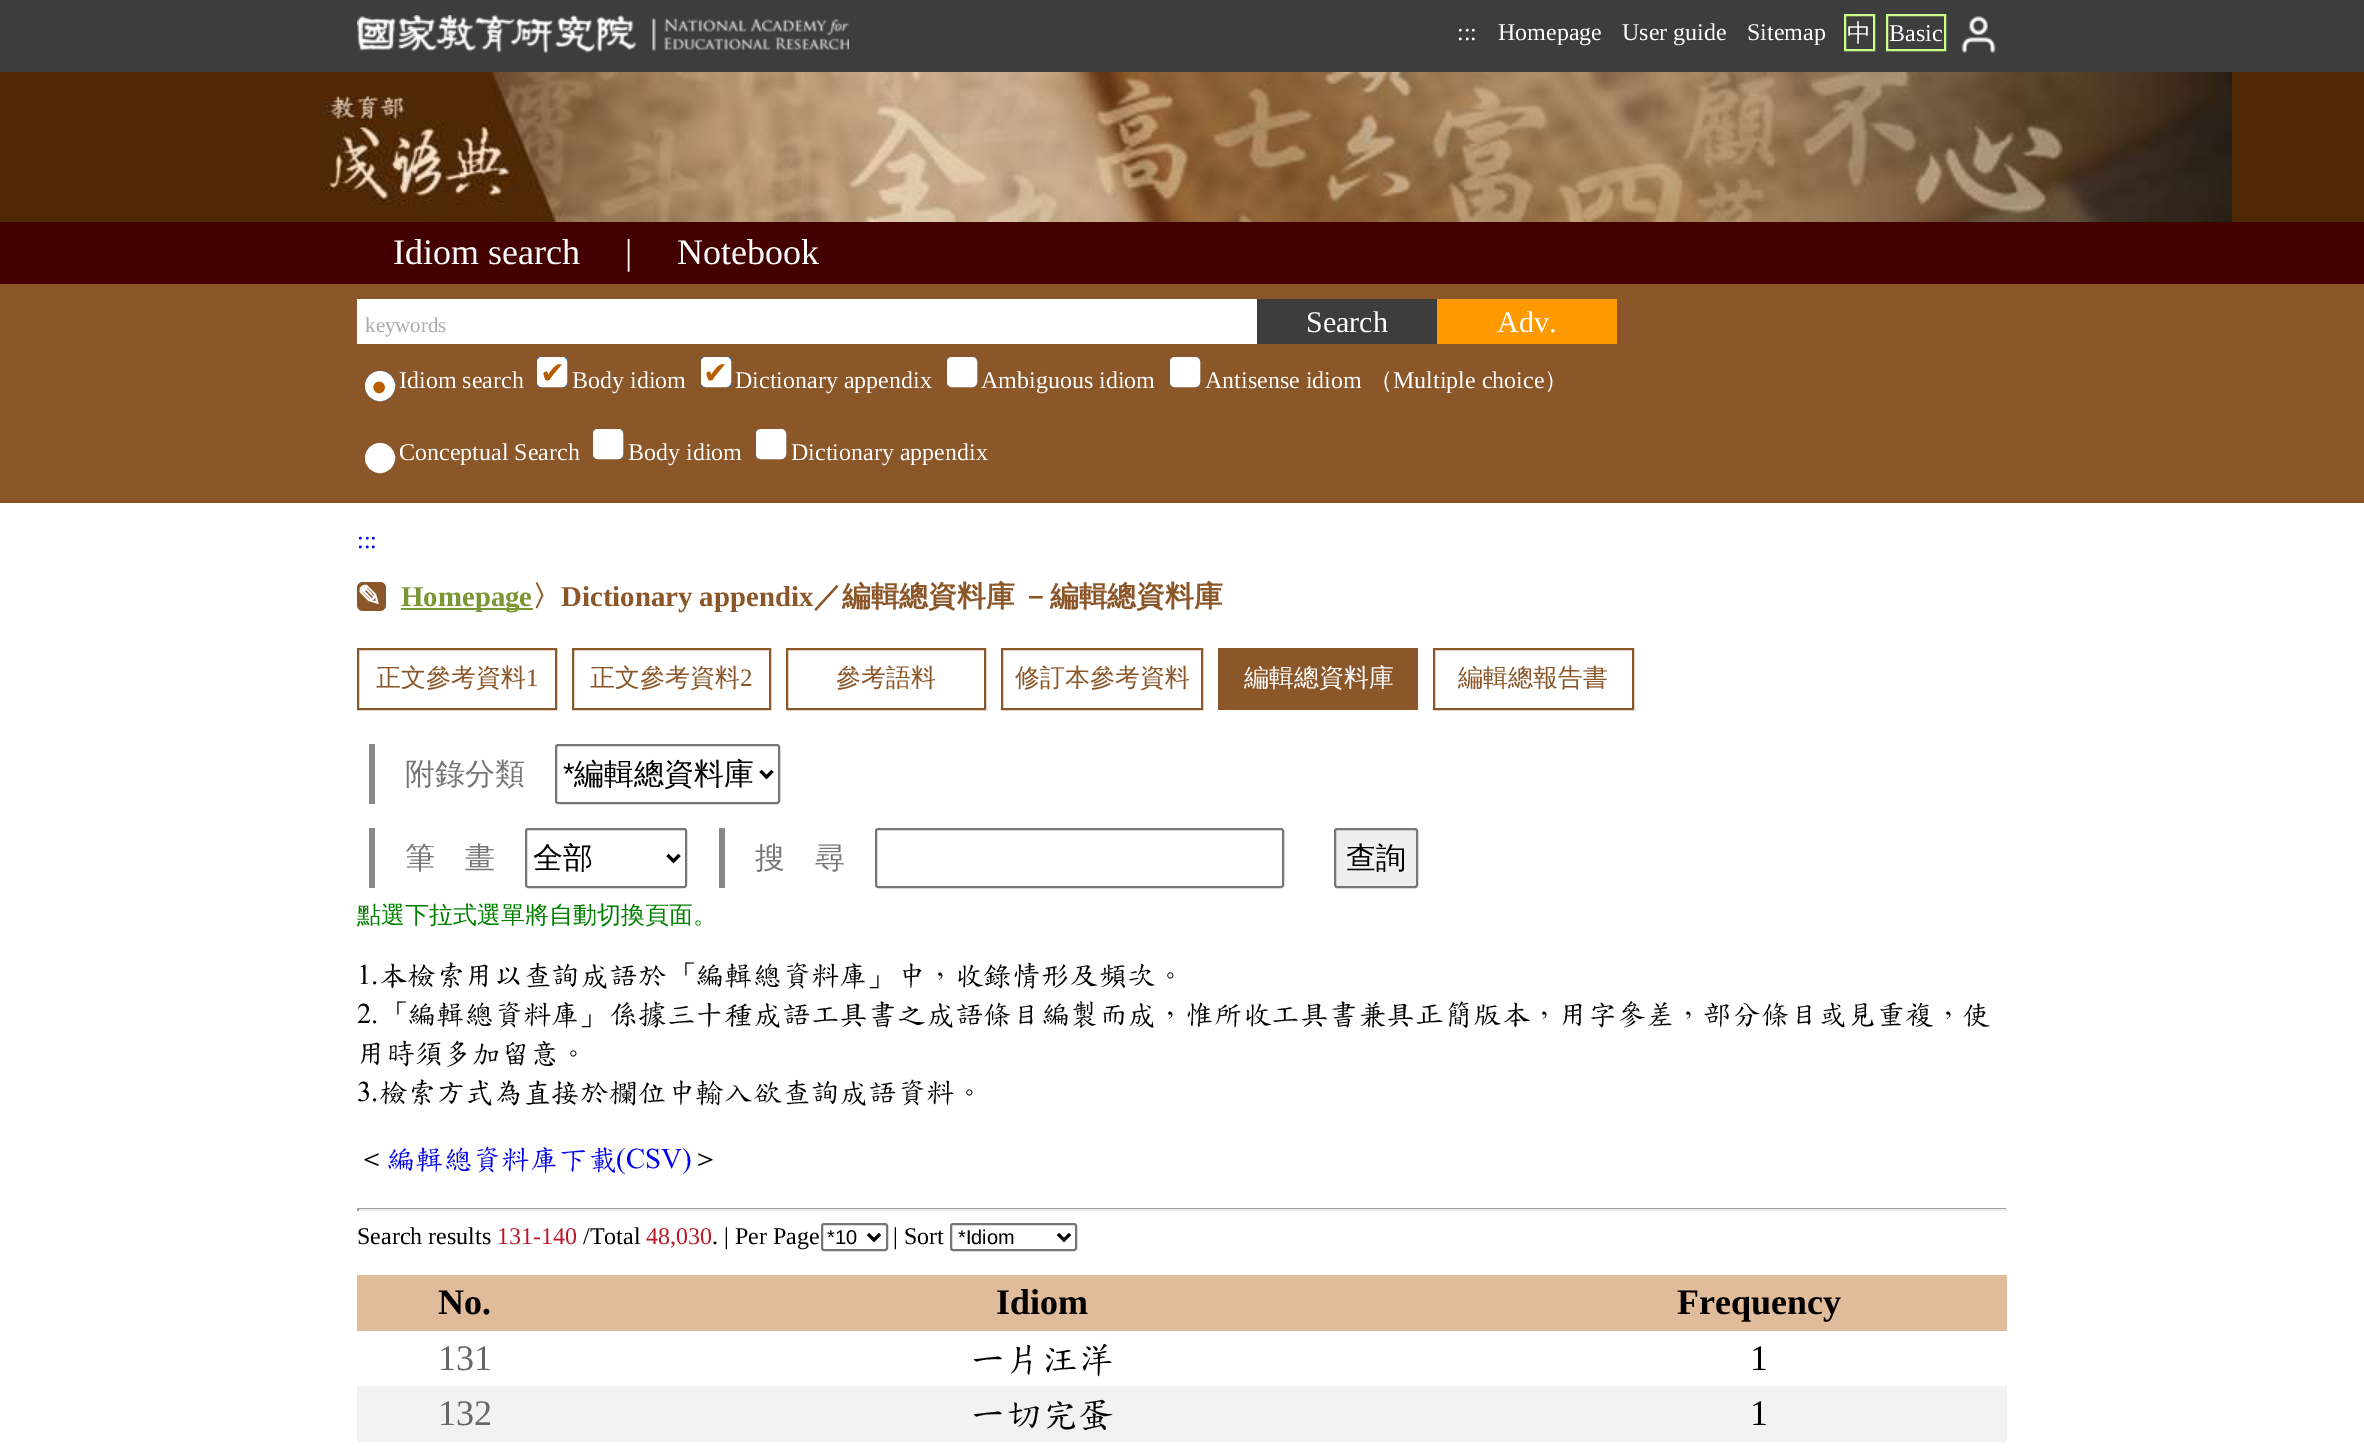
%!PS-Adobe-3.0
%%BoundingBox: 0 0 2364 1453
%%LanguageLevel: 3
%%Pages: 1
%%EndComments
%%BeginProlog
/rrect { 5 dict begin { /r /h /w /y /x } { exch def } forall
  x r add y moveto x w add y 2 copy h add r arct x w add y h add x 1 index r arct
  x y h add x y r arct x y 2 copy exch w add exch r arct closepath end } def
/drawimage { 5 dict begin { /h /w /y /x /name } { exch def } forall
  gsave x y translate w h scale
  w h 8 [w 0 0 h 0 0] name (r) file false 3 colorimage grestore end } def
%%EndProlog
%%BeginSetup
<< /PageSize [2364 1453] >> setpagedevice
%%EndSetup
%%Page: 1 1
0 1453 translate 1 -1 scale
4 setmiterlimit
1 setgray
0 0 2364 1453 rectfill
0.545 0.341 0.161 setrgbcolor
0 284 2364 219 rectfill
0.239 setgray
0 0 2364 72 rectfill
(images/1.raw) 357 15 492 38 drawimage
0.8 1 0.533 setrgbcolor
2 setlinewidth
1845 15 29 35 rectstroke
1887 15 58 35 rectstroke
(images/2.raw) 1961 16 35 37 drawimage
0.31 0.157 0.02 setrgbcolor
0 72 2364 150 rectfill
(images/3.raw) 324 72 1908 150 drawimage
0.267 0 0 setrgbcolor
0 222 2364 62 rectfill
1 setgray
357 299 900 45 rectfill
0.239 setgray
1257 299 180 45 rectfill
1 0.6 0 setrgbcolor
1437 299 180 45 rectfill
0 0.459 1 setrgbcolor
newpath 380 386 14 0 360 arc closepath stroke
1 setgray
newpath 380 386 14 0 360 arc closepath gsave fill grestore
stroke
0 0.459 1 setrgbcolor
537 357 30 30 3 rrect fill
1 setgray
538 358 28 28 4 rrect gsave fill grestore
stroke
0 0.459 1 setrgbcolor
701 357 30 30 3 rrect fill
1 setgray
702 358 28 28 4 rrect gsave fill grestore
stroke
0.463 setgray
948 358 28 28 2 rrect stroke
1 setgray
948 358 28 28 4 rrect gsave fill grestore
stroke
0.463 setgray
1171 358 28 28 2 rrect stroke
1 setgray
1171 358 28 28 4 rrect gsave fill grestore
stroke
0.463 setgray
newpath 380 458 14 0 360 arc closepath stroke
1 setgray
newpath 380 458 14 0 360 arc closepath gsave fill grestore
stroke
0.463 setgray
594 430 28 28 2 rrect stroke
1 setgray
594 430 28 28 4 rrect gsave fill grestore
stroke
0.463 setgray
757 430 28 28 2 rrect stroke
1 setgray
757 430 28 28 4 rrect gsave fill grestore
stroke
0.545 0.341 0.161 setrgbcolor
357 582 29 29 6 rrect fill
0.482 0.588 0.204 setrgbcolor
401 608 132 2 rectfill
0.545 0.341 0.161 setrgbcolor
358 649 198 60 rectstroke
573 649 197 60 rectstroke
787 649 198 60 rectstroke
1002 649 200 60 rectstroke
1218 648 200 62 rectfill
1434 649 199 60 rectstroke
0.533 setgray
369 744 6 60 rectfill
0.463 setgray
556 745 223 58 2 rrect stroke
0 setgray
3 setlinewidth
newpath 760.5 771 moveto 766.5 777 lineto 772.5 771 lineto stroke
0.533 setgray
369 828 6 60 rectfill
0.463 setgray
2 setlinewidth
526 829 160 58 2 rrect stroke
0 setgray
3 setlinewidth
newpath 667.5 855 moveto 673.5 861 lineto 679.5 855 lineto stroke
0.533 setgray
719 828 6 60 rectfill
0.463 setgray
2 setlinewidth
876 829 407 58 2 rrect stroke
0.937 setgray
1335 829 82 58 2 rrect gsave fill grestore
0.463 setgray
stroke
0.624 setgray
357 1208 1650 1 rectfill
0.933 setgray
2006 1208 2 3 rectfill
357 1209 1650 2 rectfill
0.624 setgray
357 1208 2 3 rectfill
0.463 setgray
822 1224 65 26 2 rrect stroke
0 setgray
3 setlinewidth
newpath 868 1234 moveto 874 1240 lineto 880 1234 lineto stroke
0.463 setgray
2 setlinewidth
951 1224 125 26 2 rrect stroke
0 setgray
3 setlinewidth
newpath 1058 1234 moveto 1064 1240 lineto 1070 1234 lineto stroke
0.882 0.737 0.608 setrgbcolor
357 1275 1650 56 rectfill
0.949 setgray
357 1386 1650 56 rectfill
/LiberationSerif-Regular [24 0 0 -24 0 0] selectfont
1 setgray
1457 40 moveto (:::) show
1498 40 moveto (Homepage) show
1622 40 moveto (User guide) show
1747 40 moveto (Sitemap) show
/WenQuanYiZenHei-Medium [24 0 0 -24 0 0] selectfont
1847 41 moveto (中) show
/LiberationSerif-Regular [24 0 0 -24 0 0] selectfont
1889 41 moveto (Basic) show
/LiberationSerif-Regular [36 0 0 -36 0 0] selectfont
393 264 moveto (Idiom search) show
625 264 moveto (|) show
677 264 moveto (Notebook) show
/LiberationSerif-Regular [21 0 0 -21 0 0] selectfont
0.667 setgray
365 332 moveto (keywords) show
/LiberationSerif-Regular [30 0 0 -30 0 0] selectfont
1 setgray
1306 332 moveto (Search) show
1497 332 moveto (Adv.) show
/LiberationSerif-Regular [27 0 0 -27 0 0] selectfont
0.725 0.369 0 setrgbcolor
371 395 moveto (●) show
/LiberationSerif-Regular [24 0 0 -24 0 0] selectfont
1 setgray
399 388 moveto (Idiom search) show
/DejaVuSans-Regular [30 0 0 -30 0 0] selectfont
0.725 0.369 0 setrgbcolor
540 383 moveto (✔) show
/LiberationSerif-Regular [24 0 0 -24 0 0] selectfont
1 setgray
572 388 moveto (Body idiom) show
/DejaVuSans-Regular [30 0 0 -30 0 0] selectfont
0.725 0.369 0 setrgbcolor
703 383 moveto (✔) show
/LiberationSerif-Regular [24 0 0 -24 0 0] selectfont
1 setgray
735 388 moveto (Dictionary appendix) show
981 388 moveto (Ambiguous idiom) show
1205 388 moveto (Antisense idiom) show
/WenQuanYiZenHei-Medium [24 0 0 -24 0 0] selectfont
1369 388 moveto (（) show
/LiberationSerif-Regular [24 0 0 -24 0 0] selectfont
1393 388 moveto (Multiple choice) show
/WenQuanYiZenHei-Medium [24 0 0 -24 0 0] selectfont
1544 388 moveto (）) show
/LiberationSerif-Regular [24 0 0 -24 0 0] selectfont
399 460 moveto (Conceptual Search) show
628 460 moveto (Body idiom) show
791 460 moveto (Dictionary appendix) show
0 0 0.933 setrgbcolor
357 548 moveto (:::) show
/DejaVuSans-Bold [28.8 0 0 -28.8 0 0] selectfont
1 setgray
357 606 moveto (✎) show
/LiberationSerif-Bold [28.8 0 0 -28.8 0 0] selectfont
0.482 0.588 0.204 setrgbcolor
401 606 moveto (Homepage) show
/WenQuanYiZenHei-Bold [28.8 0 0 -28.8 0 0] selectfont
0.545 0.341 0.161 setrgbcolor
532 606 moveto (〉) show
/LiberationSerif-Bold [28.8 0 0 -28.8 0 0] selectfont
561 606 moveto (Dictionary appendix) show
/WenQuanYiZenHei-Bold [28.8 0 0 -28.8 0 0] selectfont
813 606 moveto (／編輯總資料庫) show
1021 606 moveto (－編輯總資料庫) show
/WenQuanYiZenHei-Medium [25 0 0 -25 0 0] selectfont
376 686 moveto (正文參考資料) show
/LiberationSerif-Regular [25 0 0 -25 0 0] selectfont
526 686 moveto (1) show
/WenQuanYiZenHei-Medium [25 0 0 -25 0 0] selectfont
590 686 moveto (正文參考資料) show
/LiberationSerif-Regular [25 0 0 -25 0 0] selectfont
740 686 moveto (2) show
/WenQuanYiZenHei-Medium [25 0 0 -25 0 0] selectfont
836 686 moveto (參考語料) show
1015 686 moveto (修訂本參考資料) show
1 setgray
1244 686 moveto (編輯總資料庫) show
0.545 0.341 0.161 setrgbcolor
1458 686 moveto (編輯總報告書) show
/WenQuanYiZenHei-Medium [30 0 0 -30 0 0] selectfont
0.463 setgray
405 784 moveto (附錄分類) show
/LiberationSans-Regular [30 0 0 -30 0 0] selectfont
0 setgray
563 784 moveto (*) show
/WenQuanYiZenHei-Medium [30 0 0 -30 0 0] selectfont
574 784 moveto (編輯總資料庫) show
0.463 setgray
405 868 moveto (筆　畫) show
0 setgray
533 868 moveto (全部) show
0.463 setgray
755 868 moveto (搜　尋) show
0 setgray
1346 868 moveto (查詢) show
/WenQuanYiZenHei-Medium [24 0 0 -24 0 0] selectfont
0 0.502 0 setrgbcolor
357 923 moveto (點選下拉式選單將自動切換頁面。) show
/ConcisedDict-Regular [28.8 0 0 -28.8 0 0] selectfont
0 setgray
357 984 moveto (1.本檢索用以查詢成語於「編輯總資料庫」中，收錄情形及頻次。) show
357 1023 moveto (2.「編輯總資料庫」係據三十種成語工具書之成語條目編製而成，惟所收工具書兼具正簡版本，用字參差，部分條目或見重複，使) show
357 1062 moveto (用時須多加留意。) show
357 1101 moveto (3.檢索方式為直接於欄位中輸入欲查詢成語資料。) show
/WenQuanYiZenHei-Medium [28.8 0 0 -28.8 0 0] selectfont
357 1168 moveto (＜) show
/ConcisedDict-Regular [28.8 0 0 -28.8 0 0] selectfont
0 0 0.933 setrgbcolor
386 1168 moveto (編輯總資料庫下載\(CSV\)) show
/WenQuanYiZenHei-Medium [28.8 0 0 -28.8 0 0] selectfont
0 setgray
691 1168 moveto (＞) show
/LiberationSerif-Regular [24 0 0 -24 0 0] selectfont
357 1244 moveto (Search results) show
0.737 0.098 0.157 setrgbcolor
497 1244 moveto (131-140) show
0 setgray
583 1244 moveto (/Total) show
0.737 0.098 0.157 setrgbcolor
646 1244 moveto (48,030) show
0 setgray
712 1244 moveto (. | Per Page) show
/LiberationSans-Regular [20 0 0 -20 0 0] selectfont
827 1244 moveto (*10) show
/LiberationSerif-Regular [24 0 0 -24 0 0] selectfont
893 1244 moveto (| Sort) show
/LiberationSans-Regular [20 0 0 -20 0 0] selectfont
958 1244 moveto (*Idiom) show
/LiberationSerif-Bold [36 0 0 -36 0 0] selectfont
438 1314 moveto (No.) show
996 1314 moveto (Idiom) show
1677 1314 moveto (Frequency) show
/LiberationSerif-Regular [36 0 0 -36 0 0] selectfont
0.4 setgray
438 1370 moveto (131) show
/ConcisedDict-Regular [36 0 0 -36 0 0] selectfont
0 setgray
970 1370 moveto (一片汪洋) show
/LiberationSerif-Regular [36 0 0 -36 0 0] selectfont
1750 1370 moveto (1) show
0.4 setgray
438 1425 moveto (132) show
/ConcisedDict-Regular [36 0 0 -36 0 0] selectfont
0 setgray
970 1425 moveto (一切完蛋) show
/LiberationSerif-Regular [36 0 0 -36 0 0] selectfont
1750 1425 moveto (1) show
showpage
%%EOF
